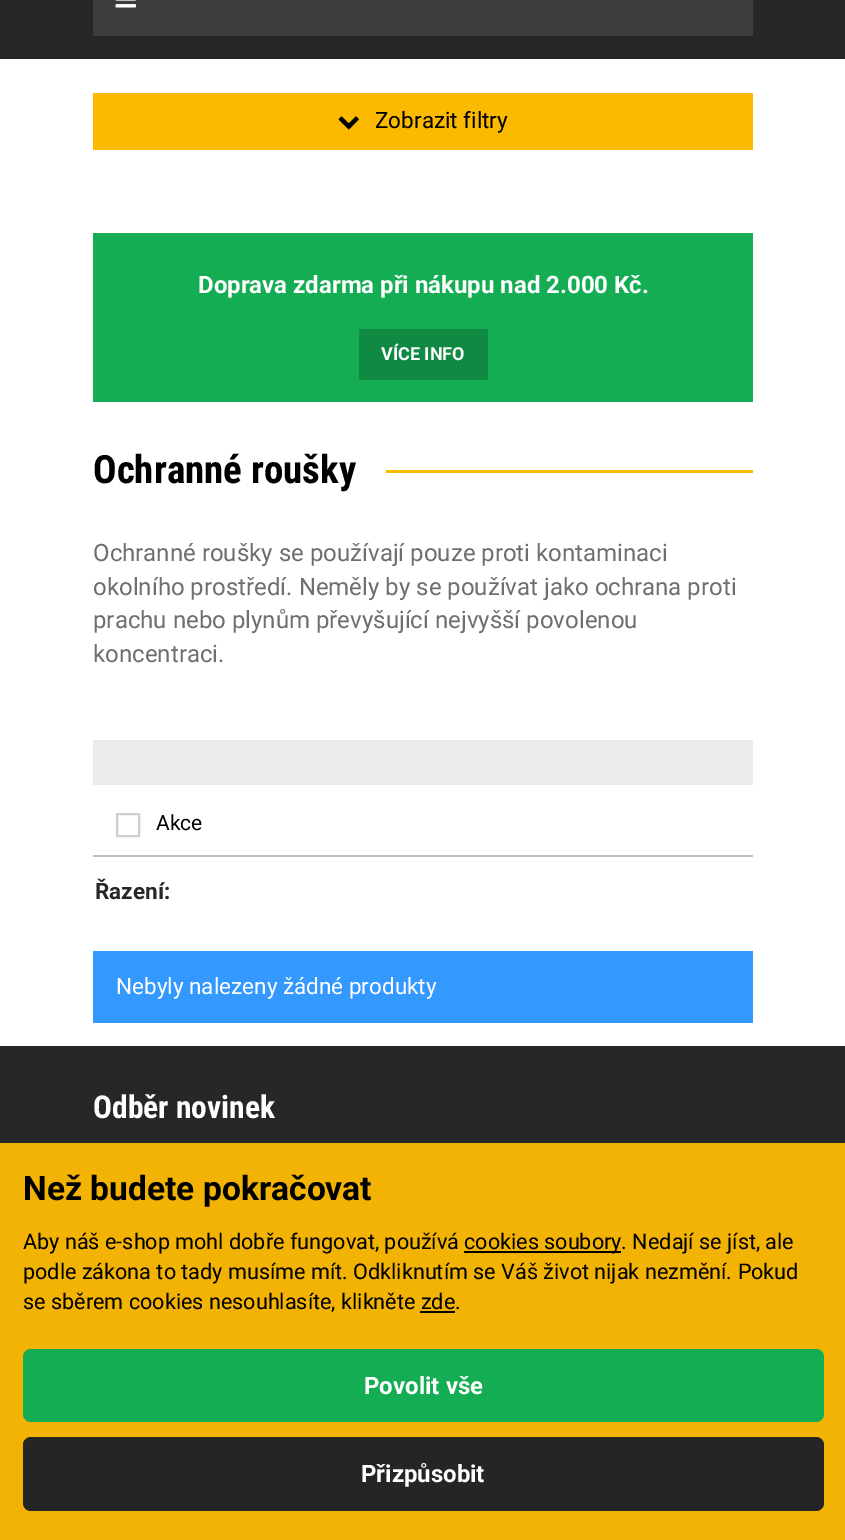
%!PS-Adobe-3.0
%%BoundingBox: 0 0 845 1540
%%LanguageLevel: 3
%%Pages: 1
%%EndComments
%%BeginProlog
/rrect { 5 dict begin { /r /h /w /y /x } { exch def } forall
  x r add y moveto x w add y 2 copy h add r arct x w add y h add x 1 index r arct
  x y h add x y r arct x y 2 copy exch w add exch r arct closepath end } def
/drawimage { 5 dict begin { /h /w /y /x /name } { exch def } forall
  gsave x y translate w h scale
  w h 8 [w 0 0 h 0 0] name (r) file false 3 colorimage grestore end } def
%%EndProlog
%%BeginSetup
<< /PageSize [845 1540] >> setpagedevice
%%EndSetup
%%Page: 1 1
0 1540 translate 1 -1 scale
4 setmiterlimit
1 setgray
0 0 845 1540 rectfill
0.153 setgray
0 0 845 59 rectfill
0.239 setgray
93 0 660 36 rectfill
(images/1.raw) 115 0 22 8 drawimage
0.984 0.725 0 setrgbcolor
93 93 660 57 rectfill
(images/2.raw) 338 116 21 14 drawimage
0.078 0.678 0.325 setrgbcolor
93 233 660 169 rectfill
0.063 0.541 0.259 setrgbcolor
359 329 129 51 rectfill
0.984 0.725 0 setrgbcolor
386 470 367 3 rectfill
0.925 setgray
93 740 660 45 rectfill
0.753 setgray
93 855 660 2 rectfill
0.808 setgray
2 setlinewidth
117 814 22 22 rectstroke
0.2 0.6 1 setrgbcolor
93 951 660 72 rectfill
0.153 setgray
0 1046 845 97 rectfill
0.953 0.702 0.016 setrgbcolor
0 1143 845 397 rectfill
0 setgray
464 1251 157 2 rectfill
420 1311 35 2 rectfill
0.078 0.678 0.325 setrgbcolor
23 1349 801 73 8 rrect fill
0.145 setgray
23 1437 801 74 8 rrect fill
/Roboto-Regular [22.5 0 0 -22.5 0 0] selectfont
0 setgray
375 128 moveto (Zobrazit filtry) show
/Roboto-Bold [24 0 0 -24 0 0] selectfont
1 setgray
198 293 moveto (Doprava zdarma při nákupu nad 2.000 Kč.) show
/Roboto-Bold [18 0 0 -18 0 0] selectfont
381 360 moveto (VÍCE INFO) show
/RobotoCondensed-Bold [39 0 0 -39 0 0] selectfont
0 setgray
93 483 moveto (Ochranné roušky) show
/Roboto-Regular [24 0 0 -24 0 0] selectfont
0.435 0.431 0.431 setrgbcolor
93 561 moveto (Ochranné roušky se používají pouze proti kontaminaci) show
93 595 moveto (okolního prostředí. Neměly by se používat jako ochrana proti) show
93 628 moveto (prachu nebo plynům převyšující nejvyšší povolenou) show
93 662 moveto (koncentraci.) show
/Roboto-Regular [21 0 0 -21 0 0] selectfont
0 setgray
156 830 moveto (Akce) show
/Roboto-Bold [22.5 0 0 -22.5 0 0] selectfont
0.153 setgray
95 899 moveto (Řazení:) show
/Roboto-Regular [22.5 0 0 -22.5 0 0] selectfont
1 setgray
116 994 moveto (Nebyly nalezeny žádné produkty) show
/RobotoCondensed-Bold [31.5 0 0 -31.5 0 0] selectfont
93 1118 moveto (Odběr novinek) show
/Roboto-Bold [33.6 0 0 -33.6 0 0] selectfont
0 setgray
23 1200 moveto (Než budete pokračovat) show
/Roboto-Regular [21.6 0 0 -21.6 0 0] selectfont
23 1249 moveto (Aby náš e-shop mohl dobře fungovat, používá) show
464 1249 moveto (cookies soubory. Nedají se jíst, ale) show
23 1279 moveto (podle zákona to tady musíme mít. Odkliknutím se Váš život nijak nezmění. Pokud) show
23 1309 moveto (se sběrem cookies nesouhlasíte, klikněte zde.) show
/Roboto-Bold [24 0 0 -24 0 0] selectfont
1 setgray
364 1394 moveto (Povolit vše) show
361 1482 moveto (Přizpůsobit) show
showpage
%%EOF
